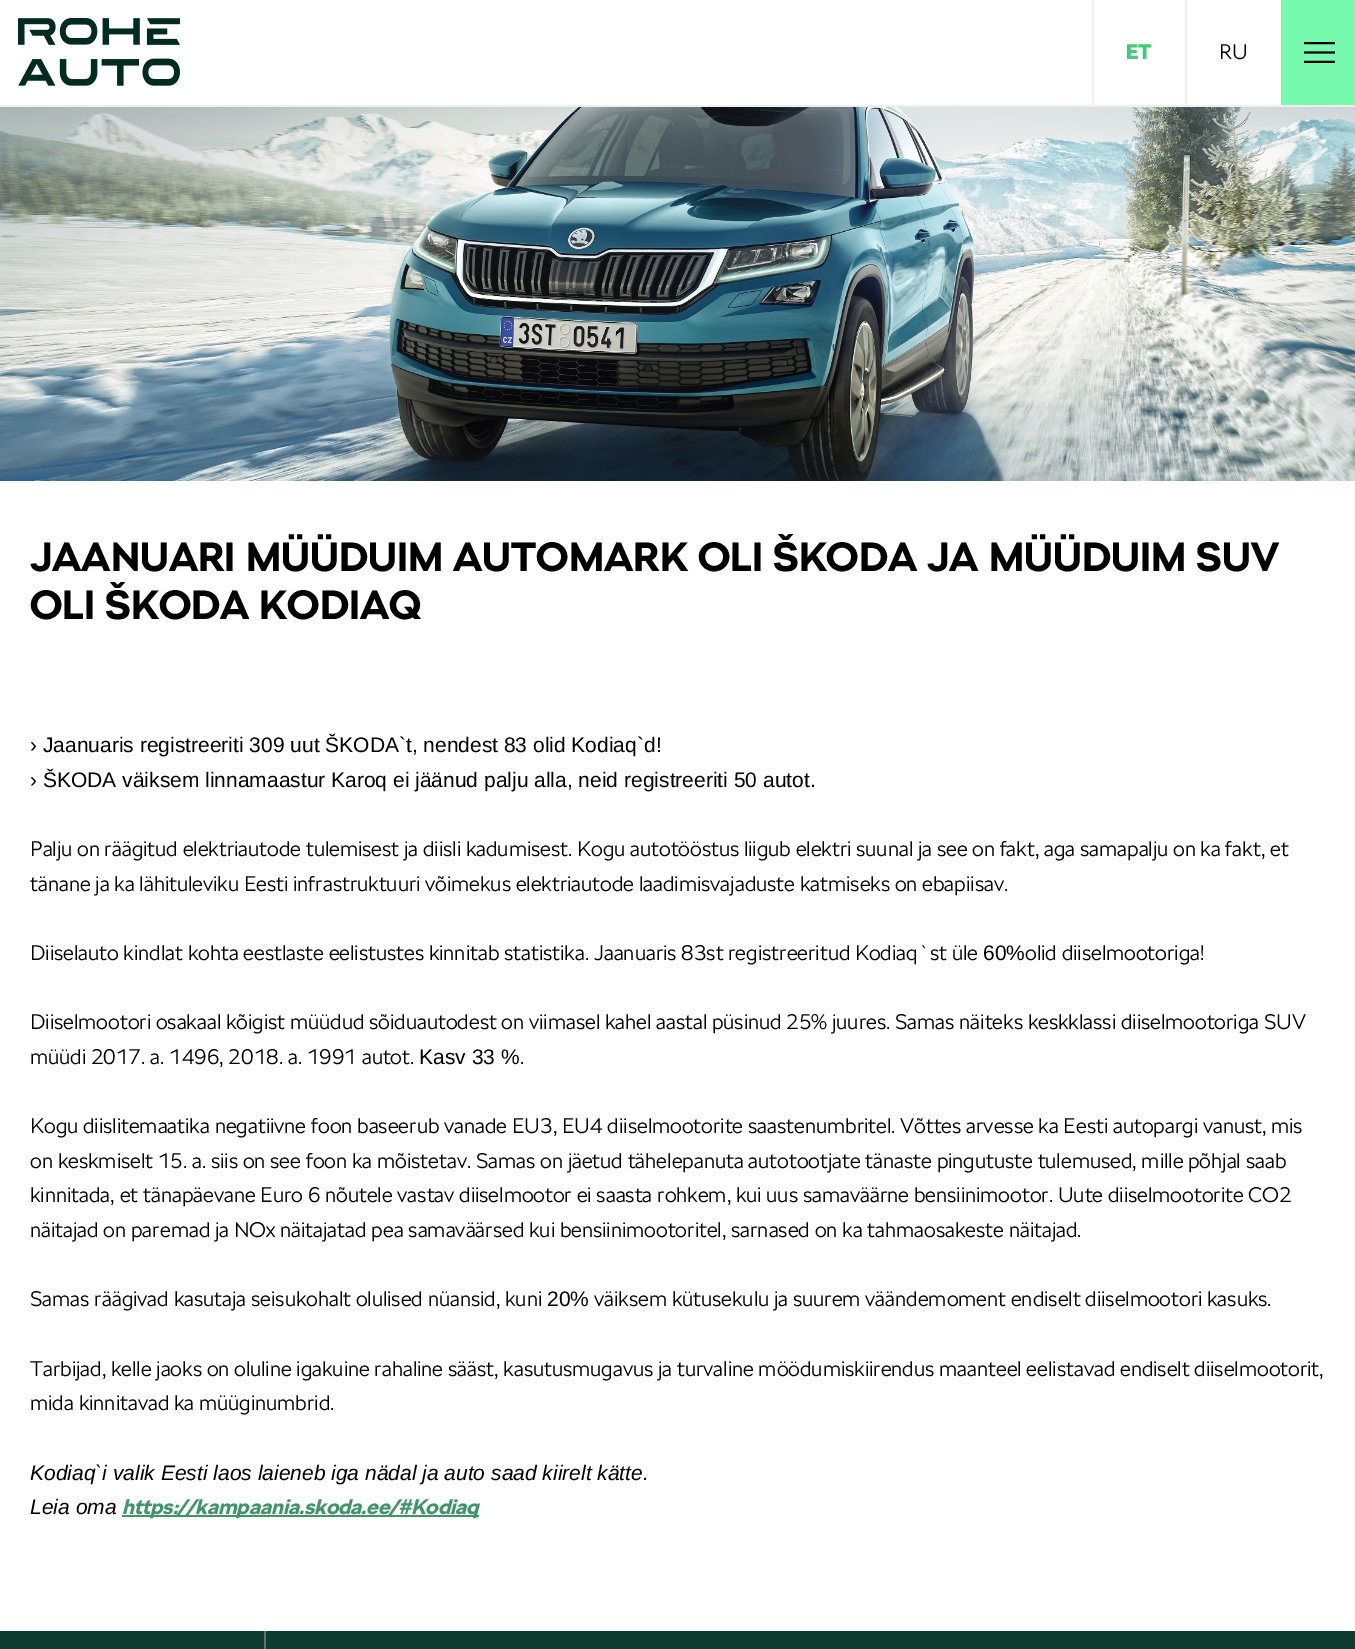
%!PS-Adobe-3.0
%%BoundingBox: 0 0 1355 1649
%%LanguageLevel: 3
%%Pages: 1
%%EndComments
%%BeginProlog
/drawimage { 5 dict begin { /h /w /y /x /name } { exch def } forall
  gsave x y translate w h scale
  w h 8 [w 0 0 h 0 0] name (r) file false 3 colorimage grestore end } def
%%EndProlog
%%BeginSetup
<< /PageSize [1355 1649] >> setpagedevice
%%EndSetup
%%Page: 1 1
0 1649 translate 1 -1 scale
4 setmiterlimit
1 setgray
0 0 1355 1649 rectfill
0.937 setgray
0 105 1355 2 rectfill
(images/1.raw) 18 18 162 68 drawimage
1092 0 2 105 rectfill
1185 0 2 105 rectfill
0.471 0.98 0.682 setrgbcolor
1281 0 74 105 rectfill
(images/2.raw) 1304 42 31 21 drawimage
(images/3.raw) 0 107 1355 374 drawimage
0.255 0.58 0.408 setrgbcolor
122 1515 357 2 rectfill
0.055 0.227 0.184 setrgbcolor
0 1631 1355 18 rectfill
0.337 0.459 0.427 setrgbcolor
264 1631 2 18 rectfill
/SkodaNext-Black [21 0 0 -21 0 0] selectfont
0.255 0.796 0.478 setrgbcolor
1126 59 moveto (ET) show
/SkodaNext-Light [21 0 0 -21 0 0] selectfont
0 setgray
1219 59 moveto (RU) show
/SkodaNext-Bold [40.5 0 0 -40.5 0 0] selectfont
30 571 moveto (JAANUARI MÜÜDUIM AUTOMARK OLI ŠKODA JA MÜÜDUIM SUV) show
30 619 moveto (OLI ŠKODA KODIAQ) show
/LiberationSans-Regular [21 0 0 -21 0 0] selectfont
30 752 moveto (› Jaanuaris registreeriti 309 uut ŠKODA`t, nendest 83 olid Kodiaq`d!) show
30 787 moveto (› ŠKODA väiksem linnamaastur Karoq ei jäänud palju alla, neid registreeriti 50 autot.) show
/SkodaNext-Light [21 0 0 -21 0 0] selectfont
30 856 moveto (Palju on räägitud elektriautode tulemisest ja diisli kadumisest. Kogu autotööstus liigub elektri suunal ja see on fakt, aga samapalju on ka fakt, et) show
30 891 moveto (tänane ja ka lähituleviku Eesti infrastruktuuri võimekus elektriautode laadimisvajaduste katmiseks on ebapiisav.) show
30 960 moveto (Diiselauto kindlat kohta eestlaste eelistustes kinnitab statistika. Jaanuaris 83st registreeritud Kodiaq`st üle) show
/LiberationSans-Regular [21 0 0 -21 0 0] selectfont
983 960 moveto (60%) show
/SkodaNext-Light [21 0 0 -21 0 0] selectfont
1025 960 moveto (olid diiselmootoriga!) show
30 1029 moveto (Diiselmootori osakaal kõigist müüdud sõiduautodest on viimasel kahel aastal püsinud 25% juures. Samas näiteks keskklassi diiselmootoriga SUV) show
30 1064 moveto (müüdi 2017. a. 1496, 2018. a. 1991 autot.) show
/LiberationSans-Regular [21 0 0 -21 0 0] selectfont
419 1064 moveto (Kasv 33 %) show
/SkodaNext-Light [21 0 0 -21 0 0] selectfont
520 1064 moveto (.) show
30 1133 moveto (Kogu diislitemaatika negatiivne foon baseerub vanade EU3, EU4 diiselmootorite saastenumbritel. Võttes arvesse ka Eesti autopargi vanust, mis) show
30 1168 moveto (on keskmiselt 15. a. siis on see foon ka mõistetav. Samas on jäetud tähelepanuta autotootjate tänaste pingutuste tulemused, mille põhjal saab) show
30 1202 moveto (kinnitada, et tänapäevane Euro 6 nõutele vastav diiselmootor ei saasta rohkem, kui uus samaväärne bensiinimootor. Uute diiselmootorite CO2) show
30 1237 moveto (näitajad on paremad ja NOx näitajatad pea samaväärsed kui bensiinimootoritel, sarnased on ka tahmaosakeste näitajad.) show
30 1306 moveto (Samas räägivad kasutaja seisukohalt olulised nüansid, kuni) show
/LiberationSans-Regular [21 0 0 -21 0 0] selectfont
547 1306 moveto (20%) show
/SkodaNext-Light [21 0 0 -21 0 0] selectfont
594 1306 moveto (väiksem kütusekulu ja suurem väändemoment endiselt diiselmootori kasuks.) show
30 1376 moveto (Tarbijad, kelle jaoks on oluline igakuine rahaline sääst, kasutusmugavus ja turvaline möödumiskiirendus maanteel eelistavad endiselt diiselmootorit,) show
30 1410 moveto (mida kinnitavad ka müüginumbrid.) show
/LiberationSans-Italic [21 0 0 -21 0 0] selectfont
30 1480 moveto (Kodiaq`i valik Eesti laos laieneb iga nädal ja auto saad kiirelt kätte.) show
30 1514 moveto (Leia oma) show
/SkodaNext-BoldItalic [21 0 0 -21 0 0] selectfont
0.255 0.58 0.408 setrgbcolor
122 1514 moveto (https://kampaania.skoda.ee/#Kodiaq) show
showpage
%%EOF
